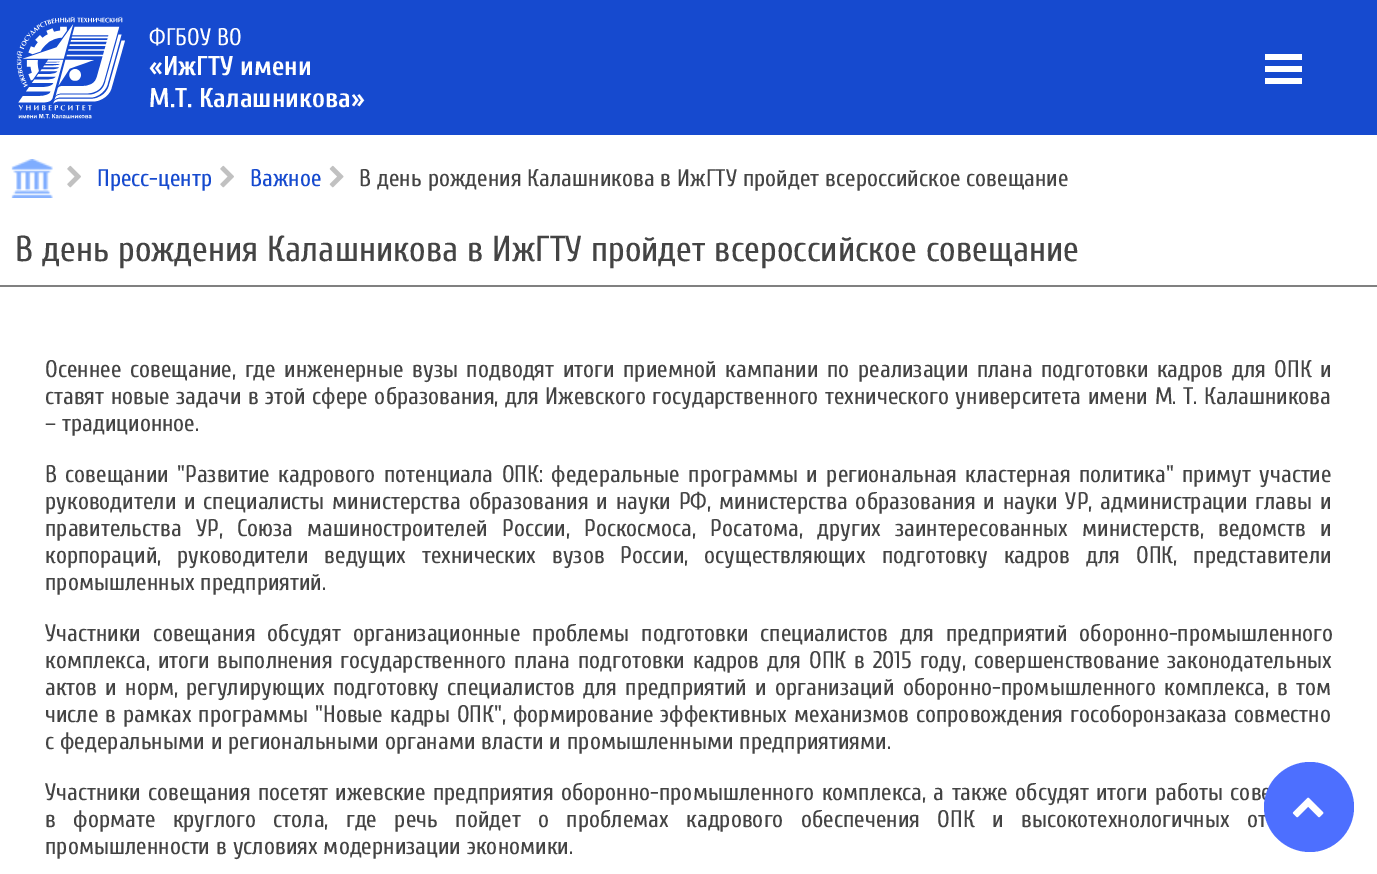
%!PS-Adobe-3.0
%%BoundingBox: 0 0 1377 874
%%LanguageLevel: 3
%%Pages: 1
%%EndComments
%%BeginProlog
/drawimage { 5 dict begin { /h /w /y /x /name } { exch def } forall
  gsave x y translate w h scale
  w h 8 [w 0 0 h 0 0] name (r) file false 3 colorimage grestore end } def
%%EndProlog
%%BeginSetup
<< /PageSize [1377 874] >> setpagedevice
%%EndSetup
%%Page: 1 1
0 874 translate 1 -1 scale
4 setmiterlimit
1 setgray
0 0 1377 874 rectfill
0.086 0.29 0.812 setrgbcolor
0 0 1377 135 rectfill
(images/1.raw) 16 16 109 103 drawimage
1 setgray
1265 54 37 6 rectfill
1265 66 37 6 rectfill
1265 78 37 6 rectfill
(images/2.raw) 11 159 42 39 drawimage
(images/3.raw) 67 165 14 23 drawimage
(images/3.raw) 220 165 14 23 drawimage
(images/4.raw) 329 165 15 23 drawimage
0.502 setgray
0 285 1377 2 rectfill
/Cuprum-Regular [24 0 0 -24 0 0] selectfont
1 setgray
149 45 moveto (ФГБОУ ВО) show
/Cuprum-Bold [27 0 0 -27 0 0] selectfont
149 75 moveto («ИжГТУ имени) show
149 107 moveto (М.Т. Калашникова») show
/Cuprum-Regular [24 0 0 -24 0 0] selectfont
0.086 0.29 0.812 setrgbcolor
97 186 moveto (Пресс-центр) show
250 186 moveto (Важное) show
0.267 setgray
359 186 moveto (В день рождения Калашникова в ИжГТУ пройдет всероссийское совещание) show
/Cuprum-Regular [36 0 0 -36 0 0] selectfont
15 261 moveto (В день рождения Калашникова в ИжГТУ пройдет всероссийское совещание) show
/Cuprum-Regular [24 0 0 -24 0 0] selectfont
45 377 moveto 2.6 0 32 (Осеннее совещание, где инженерные вузы подводят итоги приемной кампании по реализации плана подготовки кадров для ОПК и) widthshow
45 404 moveto 0.6 0 32 (ставят новые задачи в этой сфере образования, для Ижевского государственного технического университета имени М. Т. Калашникова) widthshow
45 431 moveto (– традиционное.) show
45 482 moveto 2.4 0 32 (В совещании "Развитие кадрового потенциала ОПК: федеральные программы и региональная кластерная политика" примут участие) widthshow
45 509 moveto 1.9 0 32 (руководители и специалисты министерства образования и науки РФ, министерства образования и науки УР, администрации главы и) widthshow
45 536 moveto 8.1 0 32 (правительства УР, Союза машиностроителей России, Роскосмоса, Росатома, других заинтересованных министерств, ведомств и) widthshow
45 563 moveto 10 0 32 (корпораций, руководители ведущих технических вузов России, осуществляющих подготовку кадров для ОПК, представители) widthshow
45 590 moveto (промышленных предприятий.) show
45 641 moveto 6 0 32 (Участники совещания обсудят организационные проблемы подготовки специалистов для предприятий оборонно-промышленного) widthshow
45 668 moveto 1.9 0 32 (комплекса, итоги выполнения государственного плана подготовки кадров для ОПК в 2015 году, совершенствование законодательных) widthshow
45 695 moveto 2.25 0 32 (актов и норм, регулирующих подготовку специалистов для предприятий и организаций оборонно-промышленного комплекса, в том) widthshow
45 722 moveto 1 0 32 (числе в рамках программы "Новые кадры ОПК", формирование эффективных механизмов сопровождения гособоронзаказа совместно) widthshow
45 749 moveto (с федеральными и региональными органами власти и промышленными предприятиями.) show
45 800 moveto 1.25 0 32 (Участники совещания посетят ижевские предприятия оборонно-промышленного комплекса, а также обсудят итоги работы сове) widthshow
45 827 moveto 11.4 0 32 (в формате круглого стола, где речь пойдет о проблемах кадрового обеспечения ОПК и высокотехнологичных от) widthshow
45 854 moveto (промышленности в условиях модернизации экономики.) show
0.302 0.435 1 setrgbcolor
newpath 1264 807 moveto 1264 782 1285 762 1310 762 curveto 1334 762 1354 782 1354 807 curveto 1354 832 1334 852 1310 852 curveto 1285 852 1264 832 1264 807 curveto closepath fill
(images/5.raw) 1292 797 32 21 drawimage
showpage
%%EOF
